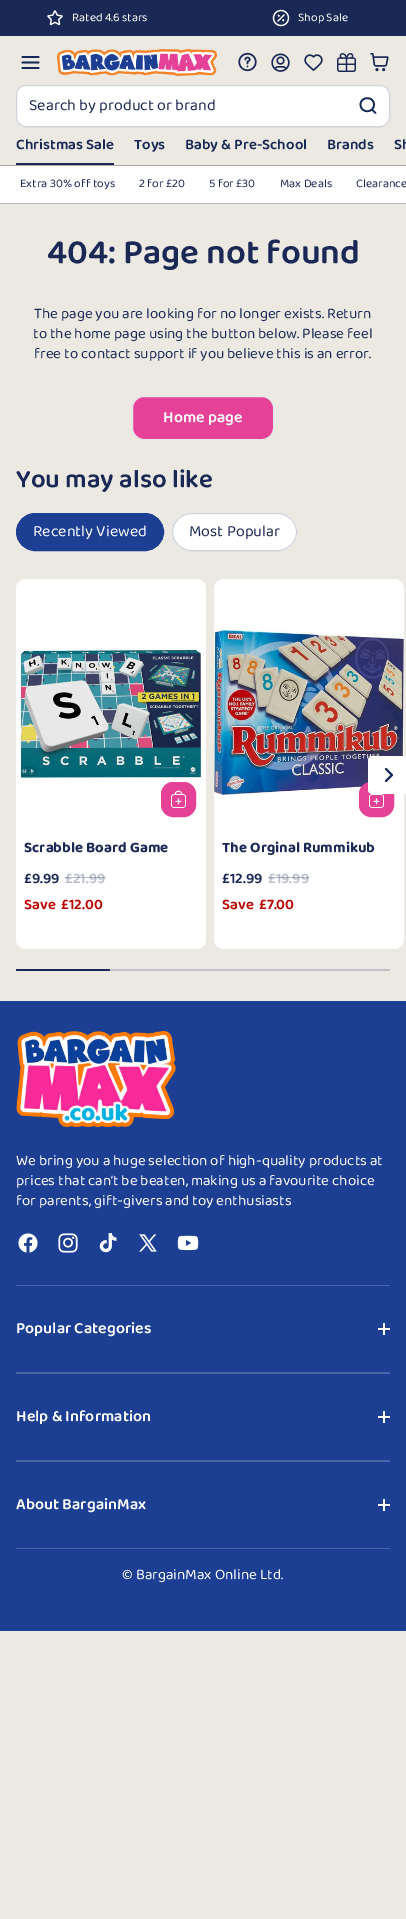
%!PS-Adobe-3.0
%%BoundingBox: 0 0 406 1919
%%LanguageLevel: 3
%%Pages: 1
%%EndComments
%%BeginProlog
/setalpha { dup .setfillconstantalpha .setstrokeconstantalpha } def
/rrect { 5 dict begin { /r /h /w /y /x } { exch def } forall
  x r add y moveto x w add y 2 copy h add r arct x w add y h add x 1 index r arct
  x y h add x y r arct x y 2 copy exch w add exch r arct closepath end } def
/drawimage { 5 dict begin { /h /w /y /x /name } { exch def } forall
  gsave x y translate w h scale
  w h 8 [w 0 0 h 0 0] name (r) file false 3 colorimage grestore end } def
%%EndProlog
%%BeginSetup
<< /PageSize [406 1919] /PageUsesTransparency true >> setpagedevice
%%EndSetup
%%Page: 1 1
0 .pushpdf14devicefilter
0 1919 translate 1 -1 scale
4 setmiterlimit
0.925 0.914 0.886 setrgbcolor
0 0 406 1919 rectfill
0.098 0.157 0.333 setrgbcolor
0 0 406 36 rectfill
(images/1.raw) 47 10 16 16 drawimage
(images/2.raw) 272 9 18 18 drawimage
0.682 0.643 0.643 setrgbcolor
0 165 406 1 rectfill
0.078 0.161 0.345 setrgbcolor
1.8 setlinewidth
1 setlinecap
1 setlinejoin
newpath 22.5 62.5 moveto 38.5 62.5 lineto 22.5 57 moveto 38.5 57 lineto 22.5 68 moveto 38.5 68 lineto stroke
(images/3.raw) 57 49 160 27 drawimage
(images/4.raw) 238 52 19 20 drawimage
(images/5.raw) 271 53 19 19 drawimage
(images/6.raw) 304 54 19 17 drawimage
(images/7.raw) 337 53 19 19 drawimage
(images/8.raw) 370 52 19 20 drawimage
1 setgray
16 85 374 42 10 rrect fill
0.2 setalpha
0.098 0.157 0.333 setrgbcolor
1 setlinewidth
0 setlinecap
0 setlinejoin
16.5 85.5 373 41 9.5 rrect stroke
1 setalpha
0.078 0.161 0.345 setrgbcolor
1.7 setlinewidth
1 setlinecap
1 setlinejoin
newpath 375.5 113 moveto 372 109.5 lineto 374 104.5 moveto 374 113.5 360.5 113.5 360.5 104.5 curveto 360.5 96 374 96 374 104.5 curveto closepath stroke
0.098 0.157 0.333 setrgbcolor
16 163 98 2 rectfill
1 setgray
0 166 406 37 rectfill
0.733 0.698 0.718 setrgbcolor
0 203 406 1 rectfill
0.898 0.255 0.588 setrgbcolor
132.5 396.5 141 43 11.5 rrect gsave fill grestore
0.898 0.906 0.922 setrgbcolor
1 setlinewidth
0 setlinecap
0 setlinejoin
stroke
0.11 0.247 0.58 setrgbcolor
16.5 513.5 147 37 18.5 rrect gsave fill grestore
stroke
1 setgray
172 513 125 38 19 rrect fill
0.2 setalpha
0.098 0.157 0.333 setrgbcolor
172.5 513.5 124 37 18.5 rrect stroke
1 setalpha
1 setgray
214 579 190 370 10 rrect fill
(images/11.raw) 214 630 190 165 drawimage
0.898 0.255 0.588 setrgbcolor
359.5 782.5 34 34 11.5 rrect gsave fill grestore
stroke
1 setgray
newpath 372 756 moveto 406 756 lineto 406 794 lineto 372 794 lineto 370 794 368 792 368 790 curveto 368 760 lineto 368 758 370 756 372 756 curveto closepath fill
0.078 0.161 0.345 setrgbcolor
2 setlinewidth
1 setlinecap
1 setlinejoin
newpath 386 769 moveto 392 775 lineto 386 781 lineto stroke
1 setgray
16 579 190 370 10 rrect fill
(images/9.raw) 20 648 182 131 drawimage
0.898 0.255 0.588 setrgbcolor
161.5 782.5 34 34 11.5 rrect gsave fill grestore
1 setlinewidth
0 setlinecap
0 setlinejoin
stroke
(images/10.raw) 171 790 15 18 drawimage
(images/12.raw) 369 794 15 14 drawimage
0.761 0.761 0.776 setrgbcolor
16 969 374 2 1 rrect fill
0.098 0.157 0.333 setrgbcolor
16 969 94 2 1 rrect fill
0.11 0.247 0.58 setrgbcolor
0 1001 406 630 rectfill
(images/13.raw) 16 1031 160 96 drawimage
(images/14.raw) 18 1233 20 20 drawimage
(images/15.raw) 58 1233 20 20 drawimage
(images/16.raw) 99 1233 18 20 drawimage
(images/17.raw) 139 1234 18 18 drawimage
(images/18.raw) 177 1235 22 16 drawimage
0.286 0.396 0.663 setrgbcolor
16 1285 374 1 rectfill
16 1372 374 2 rectfill
1 setgray
383 1323 2 12 rectfill
378 1328 12 2 1 rrect fill
0.286 0.396 0.663 setrgbcolor
16 1460 374 2 rectfill
1 setgray
383 1411 2 12 rectfill
378 1416 12 2 1 rrect fill
0.286 0.396 0.663 setrgbcolor
16 1548 374 1 rectfill
1 setgray
383 1499 2 12 rectfill
378 1504 12 2 1 rrect fill
/Baloo2-Regular [12 0 0 -12 0 0] selectfont
72 21 moveto (Rated 4.6 stars) show
298 21 moveto (Shop Sale) show
/Baloo2-Regular [16 0 0 -16 0 0] selectfont
0.098 0.157 0.333 setrgbcolor
29 110 moveto (Search by product or brand) show
/Baloo2-SemiBold [15 0 0 -15 0 0] selectfont
16 149 moveto (Christmas Sale) show
134 149 moveto (Toys) show
185 149 moveto (Baby & Pre-School) show
327 149 moveto (Brands) show
394 149 moveto (Sh) show
/Baloo2-Regular [12 0 0 -12 0 0] selectfont
20 187 moveto (Extra 30% off toys) show
139 187 moveto (2 for £20) show
209 187 moveto (5 for £30) show
280 187 moveto (Max Deals) show
356 187 moveto (Clearance) show
/Baloo2-SemiBold [35 0 0 -35 0 0] selectfont
47 263 moveto (404: Page not found) show
/Baloo2-Regular [15 0 0 -15 0 0] selectfont
34 318 moveto (The page you are looking for no longer exists. Return) show
33 338 moveto (to the home page using the button below. Please feel) show
34 358 moveto (free to contact support if you believe this is an error.) show
/Baloo2-SemiBold [16 0 0 -16 0 0] selectfont
1 setgray
163 422 moveto (Home page) show
/Baloo2-SemiBold [26 0 0 -26 0 0] selectfont
0.098 0.157 0.333 setrgbcolor
16 487 moveto (You may also like) show
/Baloo2-Regular [16 0 0 -16 0 0] selectfont
1 setgray
33 536 moveto (Recently Viewed) show
0.098 0.157 0.333 setrgbcolor
189 536 moveto (Most Popular) show
/Baloo2-Bold [15 0 0 -15 0 0] selectfont
24 852 moveto (Scrabble Board Game) show
/Baloo2-SemiBold [15 0 0 -15 0 0] selectfont
24 883 moveto (£9.99) show
0.729 0.749 0.8 setrgbcolor
65 883 moveto (£21.99) show
0.3 setalpha
0.098 0.157 0.333 setrgbcolor
65 877 41 1 rectfill
1 setalpha
0.733 0 0 setrgbcolor
24 909 moveto (Save) show
61 909 moveto (£12.00) show
/Baloo2-Bold [15 0 0 -15 0 0] selectfont
0.098 0.157 0.333 setrgbcolor
222 852 moveto (The Orginal Rummikub) show
/Baloo2-SemiBold [15 0 0 -15 0 0] selectfont
222 883 moveto (£12.99) show
0.729 0.749 0.8 setrgbcolor
268 883 moveto (£19.99) show
0.3 setalpha
0.098 0.157 0.333 setrgbcolor
268 877 41 1 rectfill
1 setalpha
0.733 0 0 setrgbcolor
222 909 moveto (Save) show
259 909 moveto (£7.00) show
/Baloo2-Regular [15 0 0 -15 0 0] selectfont
1 setgray
16 1165 moveto (We bring you a huge selection of high-quality products at) show
16 1185 moveto (prices that can’t be beaten, making us a favourite choice) show
16 1205 moveto (for parents, gift-givers and toy enthusiasts) show
/Baloo2-SemiBold [16 0 0 -16 0 0] selectfont
16 1333 moveto (Popular Categories) show
16 1421 moveto (Help & Information) show
16 1509 moveto (About BargainMax) show
/Baloo2-Regular [15 0 0 -15 0 0] selectfont
122 1579 moveto (© BargainMax Online Ltd.) show
.poppdf14devicefilter showpage
%%EOF
